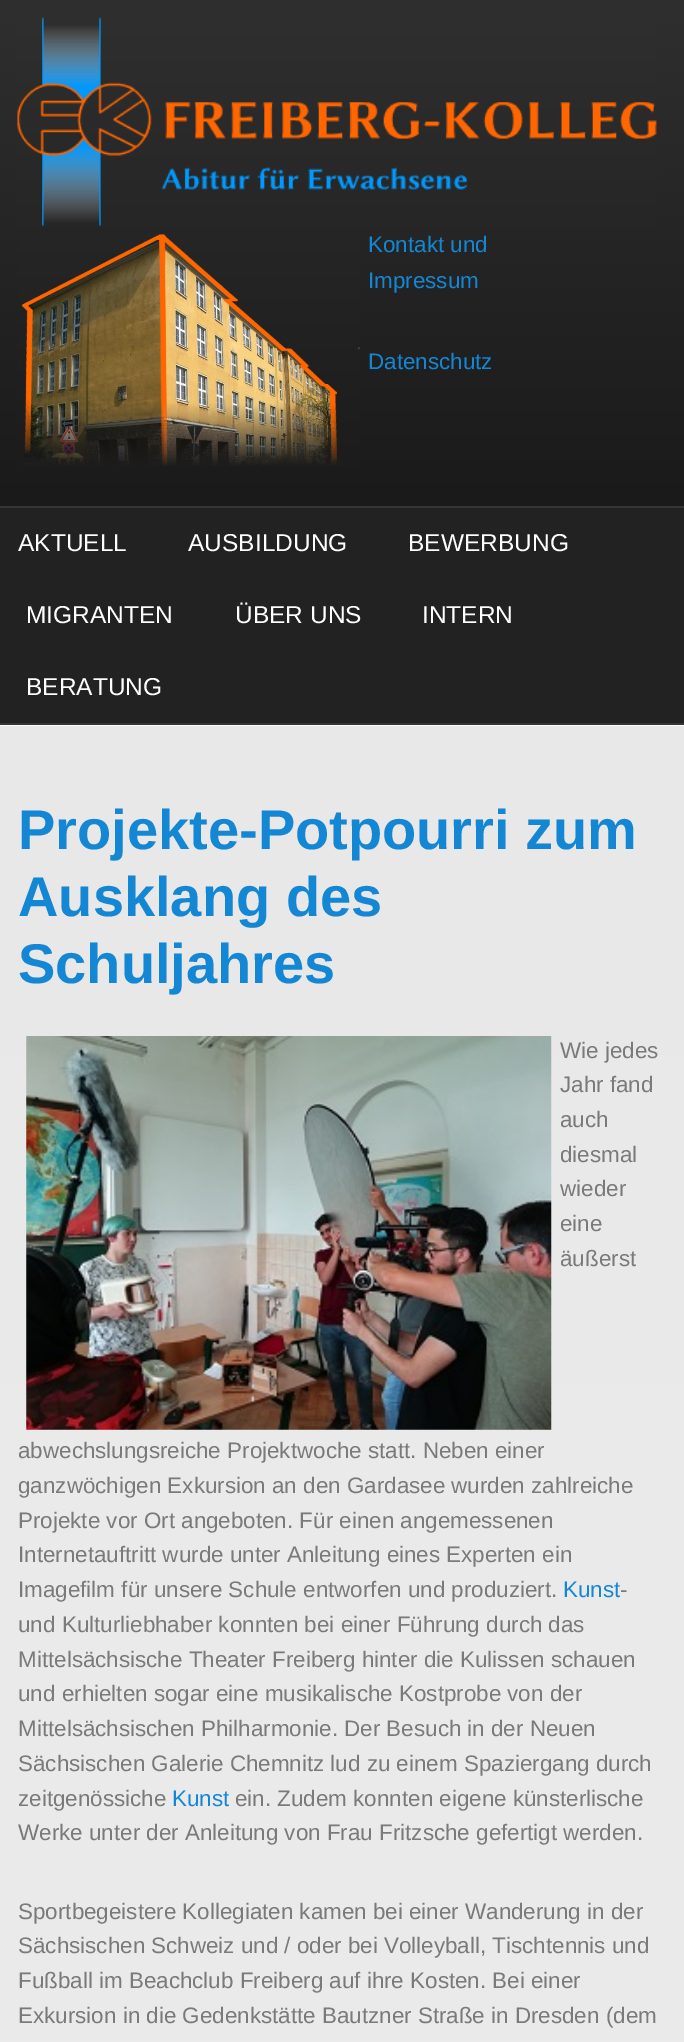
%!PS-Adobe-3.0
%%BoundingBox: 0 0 684 2042
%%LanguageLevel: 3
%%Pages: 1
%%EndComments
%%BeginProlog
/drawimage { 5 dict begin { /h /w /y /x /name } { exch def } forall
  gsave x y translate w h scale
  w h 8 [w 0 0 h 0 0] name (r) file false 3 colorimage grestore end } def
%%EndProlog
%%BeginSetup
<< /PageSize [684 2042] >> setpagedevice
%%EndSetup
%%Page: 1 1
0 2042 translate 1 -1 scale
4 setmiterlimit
1 setgray
0 0 684 2042 rectfill
gsave newpath 0 0 moveto 684 0 lineto 684 506 lineto 0 506 lineto closepath clip newpath
<< /ShadingType 2 /ColorSpace /DeviceRGB /Coords [342 0 342 506] /Extend [true true] /Function << /FunctionType 2 /Domain [0 1] /C0 [0.184 0.184 0.184] /C1 [0.106 0.102 0.102] /N 1 >> >> shfill grestore
(images/1.raw) 17 17 640 209 drawimage
(images/2.raw) 18 234 342 232 drawimage
0.133 setgray
0 508 684 215 rectfill
0.208 setgray
0 506 684 2 rectfill
0 723 684 2 rectfill
0.988 setgray
0 725 684 1 rectfill
gsave newpath 0 726 moveto 684 726 lineto 684 2042 lineto 0 2042 lineto closepath clip newpath
<< /ShadingType 2 /ColorSpace /DeviceRGB /Coords [342 726 342 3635] /Extend [true true] /Function << /FunctionType 2 /Domain [0 1] /C0 [0.91 0.91 0.91] /C1 [0.937 0.937 0.937] /N 1 >> >> shfill grestore
(images/3.raw) 26 1036 526 394 drawimage
/LiberationSans-Regular [22.4 0 0 -22.4 0 0] selectfont
0.078 0.529 0.831 setrgbcolor
368 252 moveto (Kontakt und) show
368 288 moveto (Impressum) show
368 369 moveto (Datenschutz) show
/LiberationSans-Regular [24.5 0 0 -24.5 0 0] selectfont
1 setgray
18 551 moveto (AKTUELL) show
188 551 moveto (AUSBILDUNG) show
408 551 moveto (BEWERBUNG) show
26 623 moveto (MIGRANTEN) show
235 623 moveto (ÜBER UNS) show
422 623 moveto (INTERN) show
26 695 moveto (BERATUNG) show
/LiberationSans-Bold [56 0 0 -56 0 0] selectfont
0.078 0.529 0.831 setrgbcolor
18 849 moveto (Projekte-Potpourri zum) show
18 916 moveto (Ausklang des) show
18 983 moveto (Schuljahres) show
/LiberationSans-Regular [22.4 0 0 -22.4 0 0] selectfont
0.478 setgray
560 1058 moveto (Wie jedes) show
560 1092 moveto (Jahr fand) show
560 1127 moveto (auch) show
560 1162 moveto (diesmal) show
560 1196 moveto (wieder) show
560 1231 moveto (eine) show
560 1266 moveto (äußerst) show
18 1458 moveto (abwechslungsreiche Projektwoche statt. Neben einer) show
18 1493 moveto (ganzwöchigen Exkursion an den Gardasee wurden zahlreiche) show
18 1528 moveto (Projekte vor Ort angeboten. Für einen angemessenen) show
18 1562 moveto (Internetauftritt wurde unter Anleitung eines Experten ein) show
18 1597 moveto (Imagefilm für unsere Schule entworfen und produziert.) show
0.078 0.529 0.831 setrgbcolor
563 1597 moveto (Kunst) show
0.478 setgray
620 1597 moveto (-) show
18 1632 moveto (und Kulturliebhaber konnten bei einer Führung durch das) show
18 1667 moveto (Mittelsächsische Theater Freiberg hinter die Kulissen schauen) show
18 1701 moveto (und erhielten sogar eine musikalische Kostprobe von der) show
18 1736 moveto (Mittelsächsischen Philharmonie. Der Besuch in der Neuen) show
18 1771 moveto (Sächsischen Galerie Chemnitz lud zu einem Spaziergang durch) show
18 1806 moveto (zeitgenössiche) show
0.078 0.529 0.831 setrgbcolor
172 1806 moveto (Kunst) show
0.478 setgray
235 1806 moveto (ein. Zudem konnten eigene künsterlische) show
18 1840 moveto (Werke unter der Anleitung von Frau Fritzsche gefertigt werden.) show
18 1919 moveto (Sportbegeistere Kollegiaten kamen bei einer Wanderung in der) show
18 1953 moveto (Sächsischen Schweiz und / oder bei Volleyball, Tischtennis und) show
18 1988 moveto (Fußball im Beachclub Freiberg auf ihre Kosten. Bei einer) show
18 2023 moveto (Exkursion in die Gedenkstätte Bautzner Straße in Dresden \(dem) show
showpage
%%EOF
